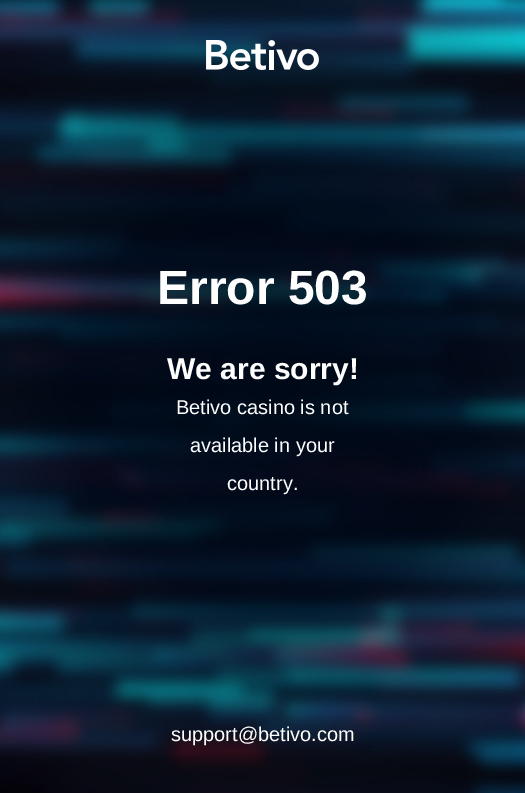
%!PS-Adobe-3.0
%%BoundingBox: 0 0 525 793
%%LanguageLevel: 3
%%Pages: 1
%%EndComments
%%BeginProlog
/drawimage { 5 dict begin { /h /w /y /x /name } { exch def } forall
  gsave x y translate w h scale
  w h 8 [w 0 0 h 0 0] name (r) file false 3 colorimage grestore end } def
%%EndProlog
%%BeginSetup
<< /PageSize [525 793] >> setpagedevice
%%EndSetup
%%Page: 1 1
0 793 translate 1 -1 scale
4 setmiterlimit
1 setgray
0 0 525 793 rectfill
(images/1.raw) 0 0 525 793 drawimage
(images/2.raw) 206 40 113 30 drawimage
/LiberationSans-Bold [48 0 0 -48 0 0] selectfont
157 304 moveto (Error 503) show
/LiberationSans-Bold [30 0 0 -30 0 0] selectfont
167 379 moveto (We are sorry!) show
/LiberationSans-Regular [20 0 0 -20 0 0] selectfont
176 414 moveto (Betivo casino is not) show
190 452 moveto (available in your) show
227 490 moveto (country.) show
171 741 moveto (support@betivo.com) show
showpage
%%EOF
